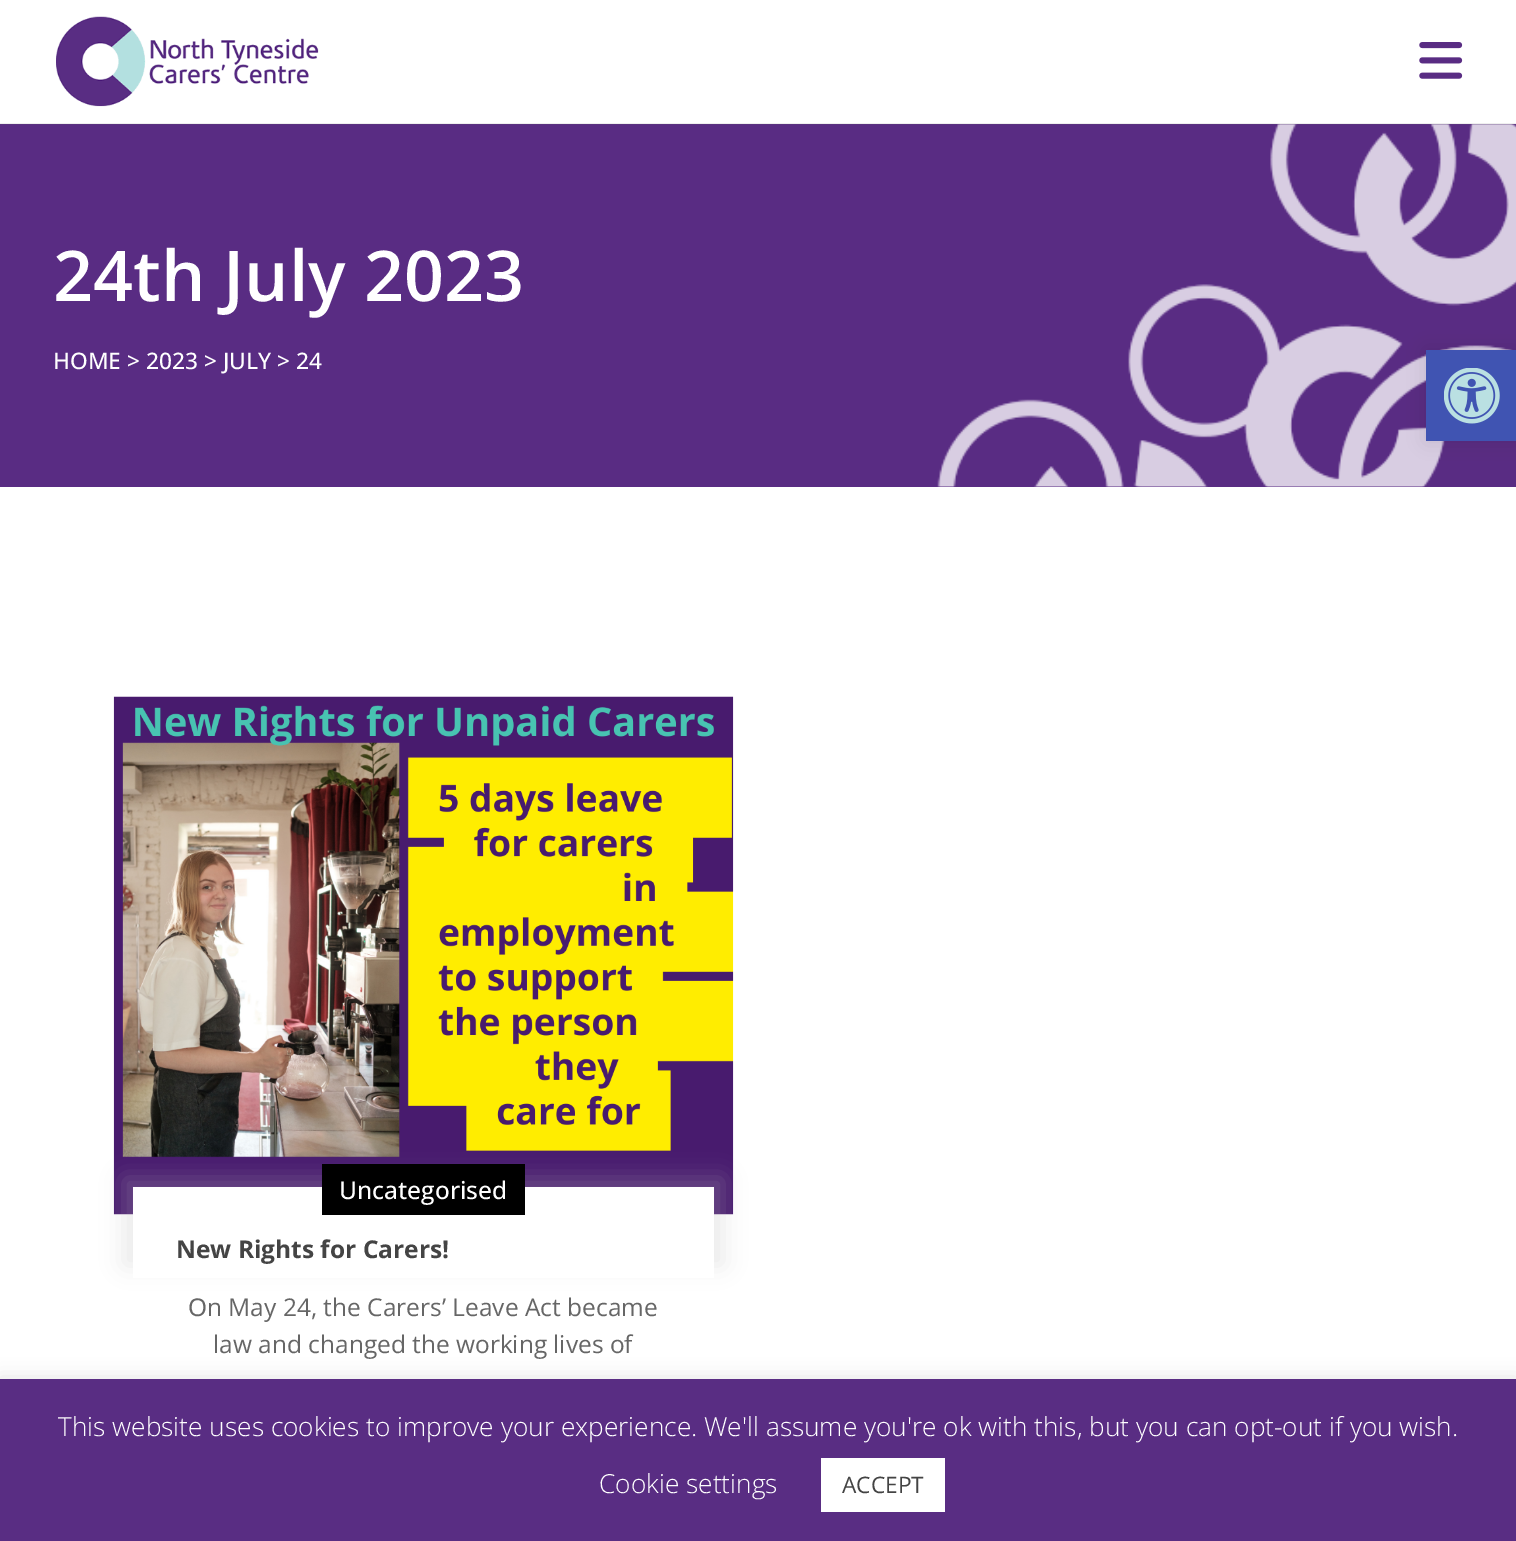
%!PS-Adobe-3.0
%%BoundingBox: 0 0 1516 1541
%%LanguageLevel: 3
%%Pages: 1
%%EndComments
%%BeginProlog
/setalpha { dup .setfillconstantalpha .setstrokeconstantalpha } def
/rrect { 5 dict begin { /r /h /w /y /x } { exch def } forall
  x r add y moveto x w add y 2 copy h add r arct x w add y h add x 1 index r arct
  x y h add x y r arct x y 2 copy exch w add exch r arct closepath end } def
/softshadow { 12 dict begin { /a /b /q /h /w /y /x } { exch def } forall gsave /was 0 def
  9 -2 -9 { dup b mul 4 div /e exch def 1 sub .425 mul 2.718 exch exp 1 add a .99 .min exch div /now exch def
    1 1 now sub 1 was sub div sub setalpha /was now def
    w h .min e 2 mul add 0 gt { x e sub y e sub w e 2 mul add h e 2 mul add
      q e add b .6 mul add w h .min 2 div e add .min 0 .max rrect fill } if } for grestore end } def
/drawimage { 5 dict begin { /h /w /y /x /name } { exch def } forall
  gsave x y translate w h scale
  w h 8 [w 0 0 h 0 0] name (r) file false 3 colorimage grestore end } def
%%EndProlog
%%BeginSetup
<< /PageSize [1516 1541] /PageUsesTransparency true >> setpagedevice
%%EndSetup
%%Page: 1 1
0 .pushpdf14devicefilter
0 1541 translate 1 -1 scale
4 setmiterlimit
1 setgray
0 0 1516 1541 rectfill
0.349 0.173 0.514 setrgbcolor
0 124 1516 363 rectfill
(images/3.raw) 937 124 579 363 drawimage
0.1 setalpha
0.392 setgray
0 123 1516 2 rectfill
1 setalpha
(images/1.raw) 56 16 263 91 drawimage
(images/2.raw) 1419 42 44 37 drawimage
(images/4.raw) 113 696 621 519 drawimage
0.737 setgray
124 1178 599 87 0 11.5 0.3 softshadow
1 setgray
133 1187 581 91 rectfill
0 setgray
322 1164 203 51 rectfill
1426 350 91 91 0 9 0.1 softshadow
0.251 0.329 0.698 setrgbcolor
1426 350 90 91 rectfill
(images/5.raw) 1444 368 56 56 drawimage
0.675 0.671 0.671 setrgbcolor
0 1377 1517 163 0 9 0.3 softshadow
0.349 0.176 0.514 setrgbcolor
0 1379 1516 162 rectfill
1 setgray
821 1458 124 54 rectfill
/OpenSans-SemiBold [70 0 0 -70 0 0] selectfont
53 301 moveto (24th July 2023) show
/OpenSans-Medium [22.75 0 0 -22.75 0 0] selectfont
53 369 moveto (HOME > 2023 > JULY > 24) show
/OpenSans-Medium [24.5 0 0 -24.5 0 0] selectfont
339 1199 moveto (Uncategorised) show
/OpenSans-Bold [24.5 0 0 -24.5 0 0] selectfont
0.267 setgray
176 1258 moveto (New Rights for Carers!) show
/NotoSans-Regular [24.5 0 0 -24.5 0 0] selectfont
0.4 setgray
188 1316 moveto (O) show
/OpenSans-Regular [24.5 0 0 -24.5 0 0] selectfont
207 1316 moveto (n May 24, the Carers’ Leave Act became) show
213 1353 moveto (law and changed the working lives of) show
/OpenSans-Light [26.25 0 0 -26.25 0 0] selectfont
1 setgray
58 1436 moveto (This website uses cookies to improve your experience. We'll assume you're ok with this, but you can opt-out if you wish.) show
599 1493 moveto (Cookie settings) show
/OpenSans-Regular [22.75 0 0 -22.75 0 0] selectfont
0.267 setgray
842 1493 moveto (ACCEPT) show
.poppdf14devicefilter showpage
%%EOF
